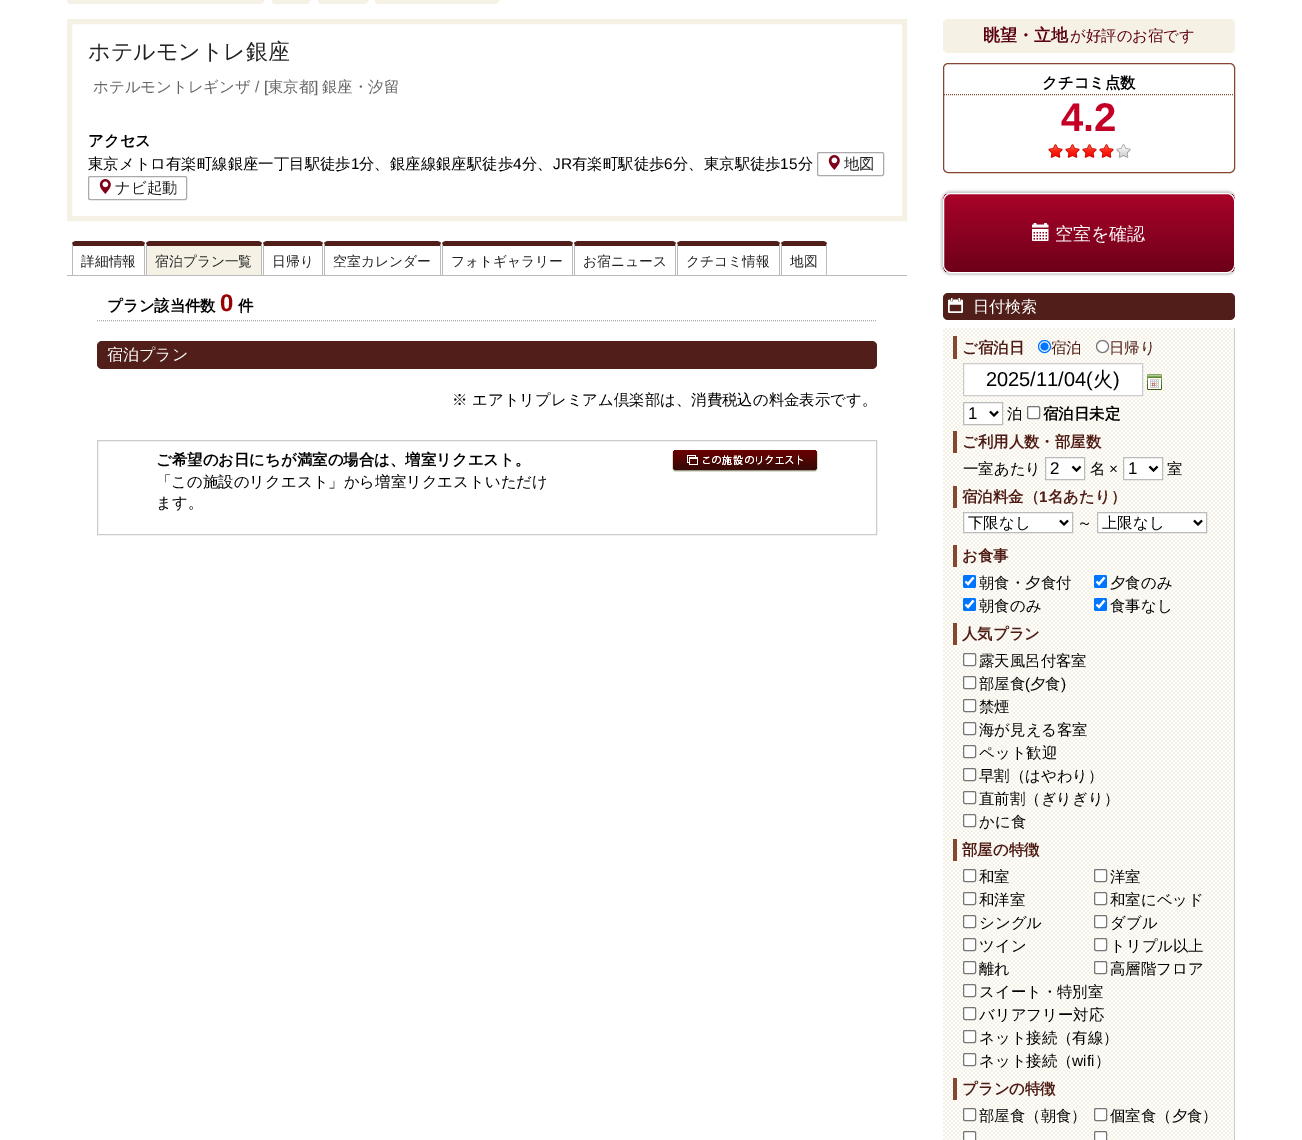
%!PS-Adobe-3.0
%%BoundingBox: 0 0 1302 1140
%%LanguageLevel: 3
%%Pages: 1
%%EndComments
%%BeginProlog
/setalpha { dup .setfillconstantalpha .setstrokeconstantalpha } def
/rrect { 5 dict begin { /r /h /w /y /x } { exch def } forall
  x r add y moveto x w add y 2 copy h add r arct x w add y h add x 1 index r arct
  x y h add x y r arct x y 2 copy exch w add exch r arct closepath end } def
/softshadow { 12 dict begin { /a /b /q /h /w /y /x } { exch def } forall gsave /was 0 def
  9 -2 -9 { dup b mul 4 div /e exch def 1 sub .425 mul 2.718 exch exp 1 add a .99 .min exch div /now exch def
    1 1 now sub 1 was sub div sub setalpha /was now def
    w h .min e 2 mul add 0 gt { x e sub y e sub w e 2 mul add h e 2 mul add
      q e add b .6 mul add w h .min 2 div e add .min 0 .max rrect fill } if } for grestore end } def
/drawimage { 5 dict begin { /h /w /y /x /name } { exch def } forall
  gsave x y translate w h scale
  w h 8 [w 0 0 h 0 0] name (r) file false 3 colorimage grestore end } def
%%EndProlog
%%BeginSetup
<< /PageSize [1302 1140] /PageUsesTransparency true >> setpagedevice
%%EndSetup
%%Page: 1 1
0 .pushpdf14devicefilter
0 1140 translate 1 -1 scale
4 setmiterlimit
1 setgray
0 0 1302 1140 rectfill
0.961 0.945 0.898 setrgbcolor
newpath 70 -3 moveto 256 -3 lineto 256 4 lineto 70 4 lineto 68.5 4 67 2.5 67 1 curveto 67 0 lineto 67 -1.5 68.5 -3 70 -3 curveto closepath fill
gsave
67 0 201 4 rectclip
newpath 256 13 moveto 256 -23 lineto 268 -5 lineto closepath fill
grestore
newpath 275 -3 moveto 302 -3 lineto 302 4 lineto 275 4 lineto 273.5 4 272 2.5 272 1 curveto 272 0 lineto 272 -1.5 273.5 -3 275 -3 curveto closepath fill
gsave
272 0 42 4 rectclip
newpath 302 13 moveto 302 -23 lineto 314 -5 lineto closepath fill
grestore
newpath 321 -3 moveto 360 -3 lineto 360 4 lineto 321 4 lineto 319.5 4 318 2.5 318 1 curveto 318 0 lineto 318 -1.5 319.5 -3 321 -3 curveto closepath fill
gsave
318 0 54 4 rectclip
newpath 360 13 moveto 360 -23 lineto 372 -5 lineto closepath fill
grestore
newpath 378 -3 moveto 491 -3 lineto 491 4 lineto 378 4 lineto 376.5 4 375 2.5 375 1 curveto 375 0 lineto 375 -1.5 376.5 -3 378 -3 curveto closepath fill
gsave
375 0 128 4 rectclip
newpath 491 13 moveto 491 -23 lineto 503 -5 lineto closepath fill
grestore
5 setlinewidth
69.5 21.5 835 197 rectstroke
0.667 setgray
1 setlinewidth
817.5 152.5 66 23 1.5 rrect stroke
(images/1.raw) 828 155 12 15 drawimage
88.5 176.5 98 23 1.5 rrect stroke
(images/1.raw) 99 179 12 15 drawimage
0.733 setgray
67 275 840 1 rectfill
0.318 0.118 0.102 setrgbcolor
newpath 76 241 moveto 75 241 73 242 72 243 curveto 73 246 lineto 144 246 lineto 145 243 lineto 144 242 142 241 141 241 curveto closepath fill
0.733 setgray
newpath 145 276 moveto 145 245 lineto 144.5 243.5 lineto 144 246 lineto 144 275 lineto closepath fill
newpath 72 276 moveto 73 275 lineto 73 246 lineto 72.5 243.5 lineto 72 245 lineto closepath fill
0.961 0.945 0.898 setrgbcolor
newpath 150 246 moveto 261 246 lineto 261 275 lineto 147 275 lineto 147 246 lineto closepath fill
0.318 0.118 0.102 setrgbcolor
newpath 150 241 moveto 149 241 147 242 146 243 curveto 147 246 lineto 261 246 lineto 262 243 lineto 261 242 259 241 258 241 curveto closepath fill
0.733 setgray
newpath 262 276 moveto 262 245 lineto 261.5 243.5 lineto 261 246 lineto 261 275 lineto closepath fill
newpath 146 276 moveto 147 275 lineto 147 246 lineto 146.5 243.5 lineto 146 245 lineto closepath fill
0.318 0.118 0.102 setrgbcolor
newpath 267 241 moveto 266 241 264 242 263 243 curveto 264 246 lineto 322 246 lineto 323 243 lineto 322 242 320 241 319 241 curveto closepath fill
0.733 setgray
newpath 323 276 moveto 323 245 lineto 322.5 243.5 lineto 322 246 lineto 322 275 lineto closepath 263 276 moveto 264 275 lineto 264 246 lineto 263.5 243.5 lineto 263 245 lineto closepath fill
0.318 0.118 0.102 setrgbcolor
newpath 328 241 moveto 327 241 325 242 324 243 curveto 325 246 lineto 440 246 lineto 441 243 lineto 440 242 438 241 437 241 curveto closepath fill
0.733 setgray
newpath 441 276 moveto 441 245 lineto 440.5 243.5 lineto 440 246 lineto 440 275 lineto closepath fill
newpath 324 276 moveto 325 275 lineto 325 246 lineto 324.5 243.5 lineto 324 245 lineto closepath fill
0.318 0.118 0.102 setrgbcolor
newpath 446 241 moveto 445 241 443 242 442 243 curveto 443 246 lineto 572 246 lineto 573 243 lineto 572 242 570 241 569 241 curveto closepath fill
0.733 setgray
newpath 573 276 moveto 573 245 lineto 572.5 243.5 lineto 572 246 lineto 572 275 lineto closepath fill
newpath 442 276 moveto 443 275 lineto 443 246 lineto 442.5 243.5 lineto 442 245 lineto closepath fill
0.318 0.118 0.102 setrgbcolor
newpath 578 241 moveto 577 241 575 242 574 243 curveto 575 246 lineto 675 246 lineto 676 243 lineto 675 242 673 241 672 241 curveto closepath fill
0.733 setgray
newpath 676 276 moveto 676 245 lineto 675.5 243.5 lineto 675 246 lineto 675 275 lineto closepath fill
newpath 574 276 moveto 575 275 lineto 575 246 lineto 574.5 243.5 lineto 574 245 lineto closepath fill
0.318 0.118 0.102 setrgbcolor
newpath 681 241 moveto 680 241 678 242 677 243 curveto 678 246 lineto 779 246 lineto 780 243 lineto 779 242 777 241 776 241 curveto closepath fill
0.733 setgray
newpath 780 276 moveto 780 245 lineto 779.5 243.5 lineto 779 246 lineto 779 275 lineto closepath fill
newpath 677 276 moveto 678 275 lineto 678 246 lineto 677.5 243.5 lineto 677 245 lineto closepath fill
0.318 0.118 0.102 setrgbcolor
newpath 785 241 moveto 784 241 782 242 781 243 curveto 782 246 lineto 826 246 lineto 827 243 lineto 826 242 824 241 823 241 curveto closepath fill
0.733 setgray
newpath 827 276 moveto 827 245 lineto 826.5 243.5 lineto 826 246 lineto 826 275 lineto closepath 781 276 moveto 782 275 lineto 782 246 lineto 781.5 243.5 lineto 781 245 lineto closepath fill
0.667 setgray
[1 1] 0 setdash
newpath 97 320.5 moveto 877 320.5 lineto stroke
0.318 0.118 0.102 setrgbcolor
97 341 780 28 5 rrect fill
0.8 setgray
[] 0 setdash
97.5 440.5 779 94 rectstroke
(images/2.raw) 672 450 146 22 drawimage
0.961 0.945 0.898 setrgbcolor
943 19 292 34 5 rrect fill
0.522 0.278 0.188 setrgbcolor
943.5 63.5 291 109 4.5 rrect stroke
[1 1] 0 setdash
newpath 944 94.5 moveto 1234 94.5 lineto stroke
(images/3.raw) 1048 144 83 14 drawimage
gsave
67 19 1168 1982 rectclip
0 setgray
941 191 296 84 10 1 0.2 softshadow
grestore
gsave
943 193 292 80 8 rrect clip newpath
gsave newpath 943 194 moveto 1235 194 lineto 1235 272 lineto 943 272 lineto closepath clip newpath
<< /ShadingType 2 /ColorSpace /DeviceRGB /Coords [1089 194 1089 272] /Extend [true true] /Function << /FunctionType 3 /Domain [0 1] /Functions [<< /FunctionType 2 /Domain [0 1] /C0 [0.663 0.012 0.161] /C1 [0.561 0.008 0.133] /N 1 >> << /FunctionType 2 /Domain [0 1] /C0 [0.561 0.008 0.133] /C1 [0.427 0 0.098] /N 1 >>] /Bounds [0.44] /Encode [0 1 0 1] >> >> shfill grestore
grestore
1 setgray
[] 0 setdash
943.5 193.5 291 79 7.5 rrect stroke
(images/4.raw) 1032 223 17 18 drawimage
0.318 0.118 0.102 setrgbcolor
943 293 292 27 5 rrect fill
(images/5.raw) 948 298 15 15 drawimage
(images/6.raw) 943 328 291 812 drawimage
0.8 setgray
1234 328 1 812 rectfill
0.522 0.278 0.188 setrgbcolor
953 336 4 23 rectfill
1 setgray
newpath 1044.5 346.5 6 0 360 arc closepath gsave fill grestore
0 0.459 1 setrgbcolor
stroke
newpath 1044.5 346.5 4 0 360 arc closepath fill
1 setgray
newpath 1102.5 346.5 6 0 360 arc closepath gsave fill grestore
0.463 setgray
stroke
1 setgray
newpath 963.5 363.5 moveto 1142.5 363.5 lineto 1142.5 395.5 lineto 963.5 395.5 lineto closepath gsave fill grestore
0.8 setgray
stroke
(images/7.raw) 1147 374 15 16 drawimage
1 setgray
newpath 963.5 402.5 moveto 1002.5 402.5 lineto 1002.5 424.5 lineto 963.5 424.5 lineto closepath gsave fill grestore
0.733 setgray
stroke
0 setgray
2 setlinewidth
newpath 990 411.5 moveto 994 415.5 lineto 998 411.5 lineto stroke
1 setgray
1027.5 406.5 12 12 1.5 rrect gsave fill grestore
0.463 setgray
1 setlinewidth
stroke
0.522 0.278 0.188 setrgbcolor
953 431 4 22 rectfill
1 setgray
newpath 1045.5 457.5 moveto 1084.5 457.5 lineto 1084.5 479.5 lineto 1045.5 479.5 lineto closepath gsave fill grestore
0.733 setgray
stroke
0 setgray
2 setlinewidth
newpath 1072.5 466.5 moveto 1076.5 470.5 lineto 1080.5 466.5 lineto stroke
1 setgray
newpath 1123.5 457.5 moveto 1162.5 457.5 lineto 1162.5 479.5 lineto 1123.5 479.5 lineto closepath gsave fill grestore
0.733 setgray
1 setlinewidth
stroke
0 setgray
2 setlinewidth
newpath 1149.5 466.5 moveto 1153.5 470.5 lineto 1157.5 466.5 lineto stroke
0.522 0.278 0.188 setrgbcolor
953 486 4 22 rectfill
1 setgray
newpath 963.5 512.5 moveto 1072.5 512.5 lineto 1072.5 532.5 lineto 963.5 532.5 lineto closepath gsave fill grestore
0.733 setgray
1 setlinewidth
stroke
0 setgray
2 setlinewidth
newpath 1060 520.5 moveto 1064 524.5 lineto 1068 520.5 lineto stroke
1 setgray
newpath 1097.5 512.5 moveto 1206.5 512.5 lineto 1206.5 532.5 lineto 1097.5 532.5 lineto closepath gsave fill grestore
0.733 setgray
1 setlinewidth
stroke
0 setgray
2 setlinewidth
newpath 1194 520.5 moveto 1198 524.5 lineto 1202 520.5 lineto stroke
0.522 0.278 0.188 setrgbcolor
953 545 4 22 rectfill
0 0.459 1 setrgbcolor
963 575 13 13 2 rrect fill
1 setgray
2.1 setlinewidth
newpath 965.5 581.5 moveto 968 584 lineto 973.5 577.5 lineto stroke
0 0.459 1 setrgbcolor
1094 575 13 13 2 rrect fill
1 setgray
newpath 1096.5 581.5 moveto 1099 584 lineto 1104.5 577.5 lineto stroke
0 0.459 1 setrgbcolor
963 598 13 13 2 rrect fill
1 setgray
newpath 965.5 604.5 moveto 968 607 lineto 973.5 600.5 lineto stroke
0 0.459 1 setrgbcolor
1094 598 13 13 2 rrect fill
1 setgray
newpath 1096.5 604.5 moveto 1099 607 lineto 1104.5 600.5 lineto stroke
0.522 0.278 0.188 setrgbcolor
953 623 4 22 rectfill
1 setgray
963.5 653.5 12 12 1.5 rrect gsave fill grestore
0.463 setgray
1 setlinewidth
stroke
1 setgray
963.5 676.5 12 12 1.5 rrect gsave fill grestore
0.463 setgray
stroke
1 setgray
963.5 699.5 12 12 1.5 rrect gsave fill grestore
0.463 setgray
stroke
1 setgray
963.5 722.5 12 12 1.5 rrect gsave fill grestore
0.463 setgray
stroke
1 setgray
963.5 745.5 12 12 1.5 rrect gsave fill grestore
0.463 setgray
stroke
1 setgray
963.5 768.5 12 12 1.5 rrect gsave fill grestore
0.463 setgray
stroke
1 setgray
963.5 791.5 12 12 1.5 rrect gsave fill grestore
0.463 setgray
stroke
1 setgray
963.5 814.5 12 12 1.5 rrect gsave fill grestore
0.463 setgray
stroke
0.522 0.278 0.188 setrgbcolor
953 839 4 22 rectfill
1 setgray
963.5 869.5 12 12 1.5 rrect gsave fill grestore
0.463 setgray
stroke
1 setgray
1094.5 869.5 12 12 1.5 rrect gsave fill grestore
0.463 setgray
stroke
1 setgray
963.5 892.5 12 12 1.5 rrect gsave fill grestore
0.463 setgray
stroke
1 setgray
1094.5 892.5 12 12 1.5 rrect gsave fill grestore
0.463 setgray
stroke
1 setgray
963.5 915.5 12 12 1.5 rrect gsave fill grestore
0.463 setgray
stroke
1 setgray
1094.5 915.5 12 12 1.5 rrect gsave fill grestore
0.463 setgray
stroke
1 setgray
963.5 938.5 12 12 1.5 rrect gsave fill grestore
0.463 setgray
stroke
1 setgray
1094.5 938.5 12 12 1.5 rrect gsave fill grestore
0.463 setgray
stroke
1 setgray
963.5 961.5 12 12 1.5 rrect gsave fill grestore
0.463 setgray
stroke
1 setgray
1094.5 961.5 12 12 1.5 rrect gsave fill grestore
0.463 setgray
stroke
1 setgray
963.5 984.5 12 12 1.5 rrect gsave fill grestore
0.463 setgray
stroke
1 setgray
963.5 1007.5 12 12 1.5 rrect gsave fill grestore
0.463 setgray
stroke
1 setgray
963.5 1030.5 12 12 1.5 rrect gsave fill grestore
0.463 setgray
stroke
1 setgray
963.5 1053.5 12 12 1.5 rrect gsave fill grestore
0.463 setgray
stroke
0.522 0.278 0.188 setrgbcolor
953 1078 4 22 rectfill
1 setgray
963.5 1108.5 12 12 1.5 rrect gsave fill grestore
0.463 setgray
stroke
1 setgray
1094.5 1108.5 12 12 1.5 rrect gsave fill grestore
0.463 setgray
stroke
1 setgray
963.5 1131.5 12 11 1.5 rrect gsave fill grestore
0.463 setgray
stroke
1 setgray
1094.5 1131.5 12 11 1.5 rrect gsave fill grestore
0.463 setgray
stroke
/WenQuanYiZenHei-Medium [22 0 0 -22 0 0] selectfont
0.133 setgray
88 59 moveto (ホテルモントレ銀座) show
/WenQuanYiZenHei-Medium [15.4 0 0 -15.4 0 0] selectfont
0.4 setgray
93 92 moveto (ホテルモントレギンザ) show
/LiberationSans-Regular [15.4 0 0 -15.4 0 0] selectfont
255 92 moveto (/ [) show
/WenQuanYiZenHei-Medium [15.4 0 0 -15.4 0 0] selectfont
268 92 moveto (東京都) show
/LiberationSans-Regular [15.4 0 0 -15.4 0 0] selectfont
314 92 moveto (]) show
/WenQuanYiZenHei-Medium [15.4 0 0 -15.4 0 0] selectfont
322 92 moveto (銀座・汐留) show
/WenQuanYiZenHei-Bold [15.4 0 0 -15.4 0 0] selectfont
0 setgray
88 146 moveto (アクセス) show
/WenQuanYiZenHei-Medium [15.4 0 0 -15.4 0 0] selectfont
88 169 moveto (東京メトロ有楽町線銀座一丁目駅徒歩) show
/LiberationSans-Regular [15.4 0 0 -15.4 0 0] selectfont
351 169 moveto (1) show
/WenQuanYiZenHei-Medium [15.4 0 0 -15.4 0 0] selectfont
359 169 moveto (分、銀座線銀座駅徒歩) show
/LiberationSans-Regular [15.4 0 0 -15.4 0 0] selectfont
513 169 moveto (4) show
/WenQuanYiZenHei-Medium [15.4 0 0 -15.4 0 0] selectfont
522 169 moveto (分、) show
/LiberationSans-Regular [15.4 0 0 -15.4 0 0] selectfont
553 169 moveto (JR) show
/WenQuanYiZenHei-Medium [15.4 0 0 -15.4 0 0] selectfont
572 169 moveto (有楽町駅徒歩) show
/LiberationSans-Regular [15.4 0 0 -15.4 0 0] selectfont
664 169 moveto (6) show
/WenQuanYiZenHei-Medium [15.4 0 0 -15.4 0 0] selectfont
673 169 moveto (分、東京駅徒歩) show
/LiberationSans-Regular [15.4 0 0 -15.4 0 0] selectfont
780 169 moveto (15) show
/WenQuanYiZenHei-Medium [15.4 0 0 -15.4 0 0] selectfont
798 169 moveto (分) show
0.133 setgray
844 169 moveto (地図) show
115 193 moveto (ナビ起動) show
/WenQuanYiZenHei-Medium [13.75 0 0 -13.75 0 0] selectfont
81 266 moveto (詳細情報) show
155 266 moveto (宿泊プラン一覧) show
272 266 moveto (日帰り) show
333 266 moveto (空室カレンダー) show
451 266 moveto (フォトギャラリー) show
583 266 moveto (お宿ニュース) show
686 266 moveto (クチコミ情報) show
790 266 moveto (地図) show
/WenQuanYiZenHei-Bold [15.4 0 0 -15.4 0 0] selectfont
0 setgray
107 311 moveto (プラン該当件数) show
/LiberationSans-Bold [24 0 0 -24 0 0] selectfont
0.6 0 0 setrgbcolor
220 311 moveto (0) show
/WenQuanYiZenHei-Bold [15.4 0 0 -15.4 0 0] selectfont
0 setgray
238 311 moveto (件) show
/WenQuanYiZenHei-Medium [16 0 0 -16 0 0] selectfont
1 setgray
107 360 moveto (宿泊プラン) show
/WenQuanYiZenHei-Medium [15.4 0 0 -15.4 0 0] selectfont
0 setgray
452 405 moveto (※ エアトリプレミアム倶楽部は、消費税込の料金表示です。) show
/WenQuanYiZenHei-Bold [15.4 0 0 -15.4 0 0] selectfont
156 465 moveto (ご希望のお日にちが満室の場合は、増室リクエスト。) show
/WenQuanYiZenHei-Medium [15.4 0 0 -15.4 0 0] selectfont
156 487 moveto (「この施設のリクエスト」から増室リクエストいただけ) show
156 508 moveto (ます。) show
/WenQuanYiZenHei-Bold [17 0 0 -17 0 0] selectfont
0.357 0 0.071 setrgbcolor
983 41 moveto (眺望・立地) show
/WenQuanYiZenHei-Medium [15.4 0 0 -15.4 0 0] selectfont
1070 41 moveto (が好評のお宿です) show
/WenQuanYiZenHei-Bold [15.4 0 0 -15.4 0 0] selectfont
0 setgray
1042 88 moveto (クチコミ点数) show
/LiberationSans-Bold [40 0 0 -40 0 0] selectfont
0.769 0 0.149 setrgbcolor
1061 131 moveto (4.2) show
/WenQuanYiZenHei-Medium [18 0 0 -18 0 0] selectfont
1 setgray
1055 240 moveto (空室を確認) show
/WenQuanYiZenHei-Medium [16 0 0 -16 0 0] selectfont
973 312 moveto (日付検索) show
/WenQuanYiZenHei-Bold [15.4 0 0 -15.4 0 0] selectfont
0.306 0.11 0.082 setrgbcolor
962 353 moveto (ご宿泊日) show
/WenQuanYiZenHei-Medium [15.4 0 0 -15.4 0 0] selectfont
1051 353 moveto (宿泊) show
1109 353 moveto (日帰り) show
/LiberationSans-Regular [20 0 0 -20 0 0] selectfont
0 setgray
986 386 moveto (2025/11/04\() show
/WenQuanYiZenHei-Medium [20 0 0 -20 0 0] selectfont
1093 386 moveto (火) show
/LiberationSans-Regular [20 0 0 -20 0 0] selectfont
1113 386 moveto (\)) show
/LiberationSans-Regular [17 0 0 -17 0 0] selectfont
968 419 moveto (1) show
/WenQuanYiZenHei-Medium [15.4 0 0 -15.4 0 0] selectfont
1007 419 moveto (泊) show
/WenQuanYiZenHei-Bold [15.4 0 0 -15.4 0 0] selectfont
1043 419 moveto (宿泊日未定) show
0.306 0.11 0.082 setrgbcolor
962 447 moveto (ご利用人数・部屋数) show
/WenQuanYiZenHei-Medium [15.4 0 0 -15.4 0 0] selectfont
0 setgray
963 474 moveto (一室あたり) show
/LiberationSans-Regular [17 0 0 -17 0 0] selectfont
1050 474 moveto (2) show
/WenQuanYiZenHei-Medium [15.4 0 0 -15.4 0 0] selectfont
1090 474 moveto (名) show
/LiberationSans-Regular [15.4 0 0 -15.4 0 0] selectfont
1109 474 moveto (×) show
/LiberationSans-Regular [17 0 0 -17 0 0] selectfont
1128 474 moveto (1) show
/WenQuanYiZenHei-Medium [15.4 0 0 -15.4 0 0] selectfont
1167 474 moveto (室) show
/WenQuanYiZenHei-Bold [15.4 0 0 -15.4 0 0] selectfont
0.306 0.11 0.082 setrgbcolor
962 502 moveto (宿泊料金（) show
/LiberationSans-Bold [15.4 0 0 -15.4 0 0] selectfont
1039 502 moveto (1) show
/WenQuanYiZenHei-Bold [15.4 0 0 -15.4 0 0] selectfont
1048 502 moveto (名あたり）) show
/WenQuanYiZenHei-Medium [15.4 0 0 -15.4 0 0] selectfont
0 setgray
968 528 moveto (下限なし) show
1077 528 moveto (～) show
1102 528 moveto (上限なし) show
/WenQuanYiZenHei-Bold [15.4 0 0 -15.4 0 0] selectfont
0.306 0.11 0.082 setrgbcolor
962 561 moveto (お食事) show
/WenQuanYiZenHei-Medium [15.4 0 0 -15.4 0 0] selectfont
0 setgray
979 588 moveto (朝食・夕食付) show
1110 588 moveto (夕食のみ) show
979 611 moveto (朝食のみ) show
1110 611 moveto (食事なし) show
/WenQuanYiZenHei-Bold [15.4 0 0 -15.4 0 0] selectfont
0.306 0.11 0.082 setrgbcolor
962 639 moveto (人気プラン) show
/WenQuanYiZenHei-Medium [15.4 0 0 -15.4 0 0] selectfont
0 setgray
979 666 moveto (露天風呂付客室) show
979 689 moveto (部屋食) show
/LiberationSans-Regular [15.4 0 0 -15.4 0 0] selectfont
1025 689 moveto (\() show
/WenQuanYiZenHei-Medium [15.4 0 0 -15.4 0 0] selectfont
1030 689 moveto (夕食) show
/LiberationSans-Regular [15.4 0 0 -15.4 0 0] selectfont
1061 689 moveto (\)) show
/WenQuanYiZenHei-Medium [15.4 0 0 -15.4 0 0] selectfont
979 712 moveto (禁煙) show
979 735 moveto (海が見える客室) show
979 758 moveto (ペット歓迎) show
979 781 moveto (早割（はやわり）) show
979 804 moveto (直前割（ぎりぎり）) show
979 827 moveto (かに食) show
/WenQuanYiZenHei-Bold [15.4 0 0 -15.4 0 0] selectfont
0.306 0.11 0.082 setrgbcolor
962 855 moveto (部屋の特徴) show
/WenQuanYiZenHei-Medium [15.4 0 0 -15.4 0 0] selectfont
0 setgray
979 882 moveto (和室) show
1110 882 moveto (洋室) show
979 905 moveto (和洋室) show
1110 905 moveto (和室にベッド) show
979 928 moveto (シングル) show
1110 928 moveto (ダブル) show
979 951 moveto (ツイン) show
1110 951 moveto (トリプル以上) show
979 974 moveto (離れ) show
1110 974 moveto (高層階フロア) show
979 997 moveto (スイート・特別室) show
979 1020 moveto (バリアフリー対応) show
979 1043 moveto (ネット接続（有線）) show
979 1066 moveto (ネット接続（) show
/LiberationSans-Regular [15.4 0 0 -15.4 0 0] selectfont
1072 1066 moveto (wifi) show
/WenQuanYiZenHei-Medium [15.4 0 0 -15.4 0 0] selectfont
1095 1066 moveto (）) show
/WenQuanYiZenHei-Bold [15.4 0 0 -15.4 0 0] selectfont
0.306 0.11 0.082 setrgbcolor
962 1094 moveto (プランの特徴) show
/WenQuanYiZenHei-Medium [15.4 0 0 -15.4 0 0] selectfont
0 setgray
979 1121 moveto (部屋食（朝食）) show
1110 1121 moveto (個室食（夕食）) show
.poppdf14devicefilter showpage
%%EOF
